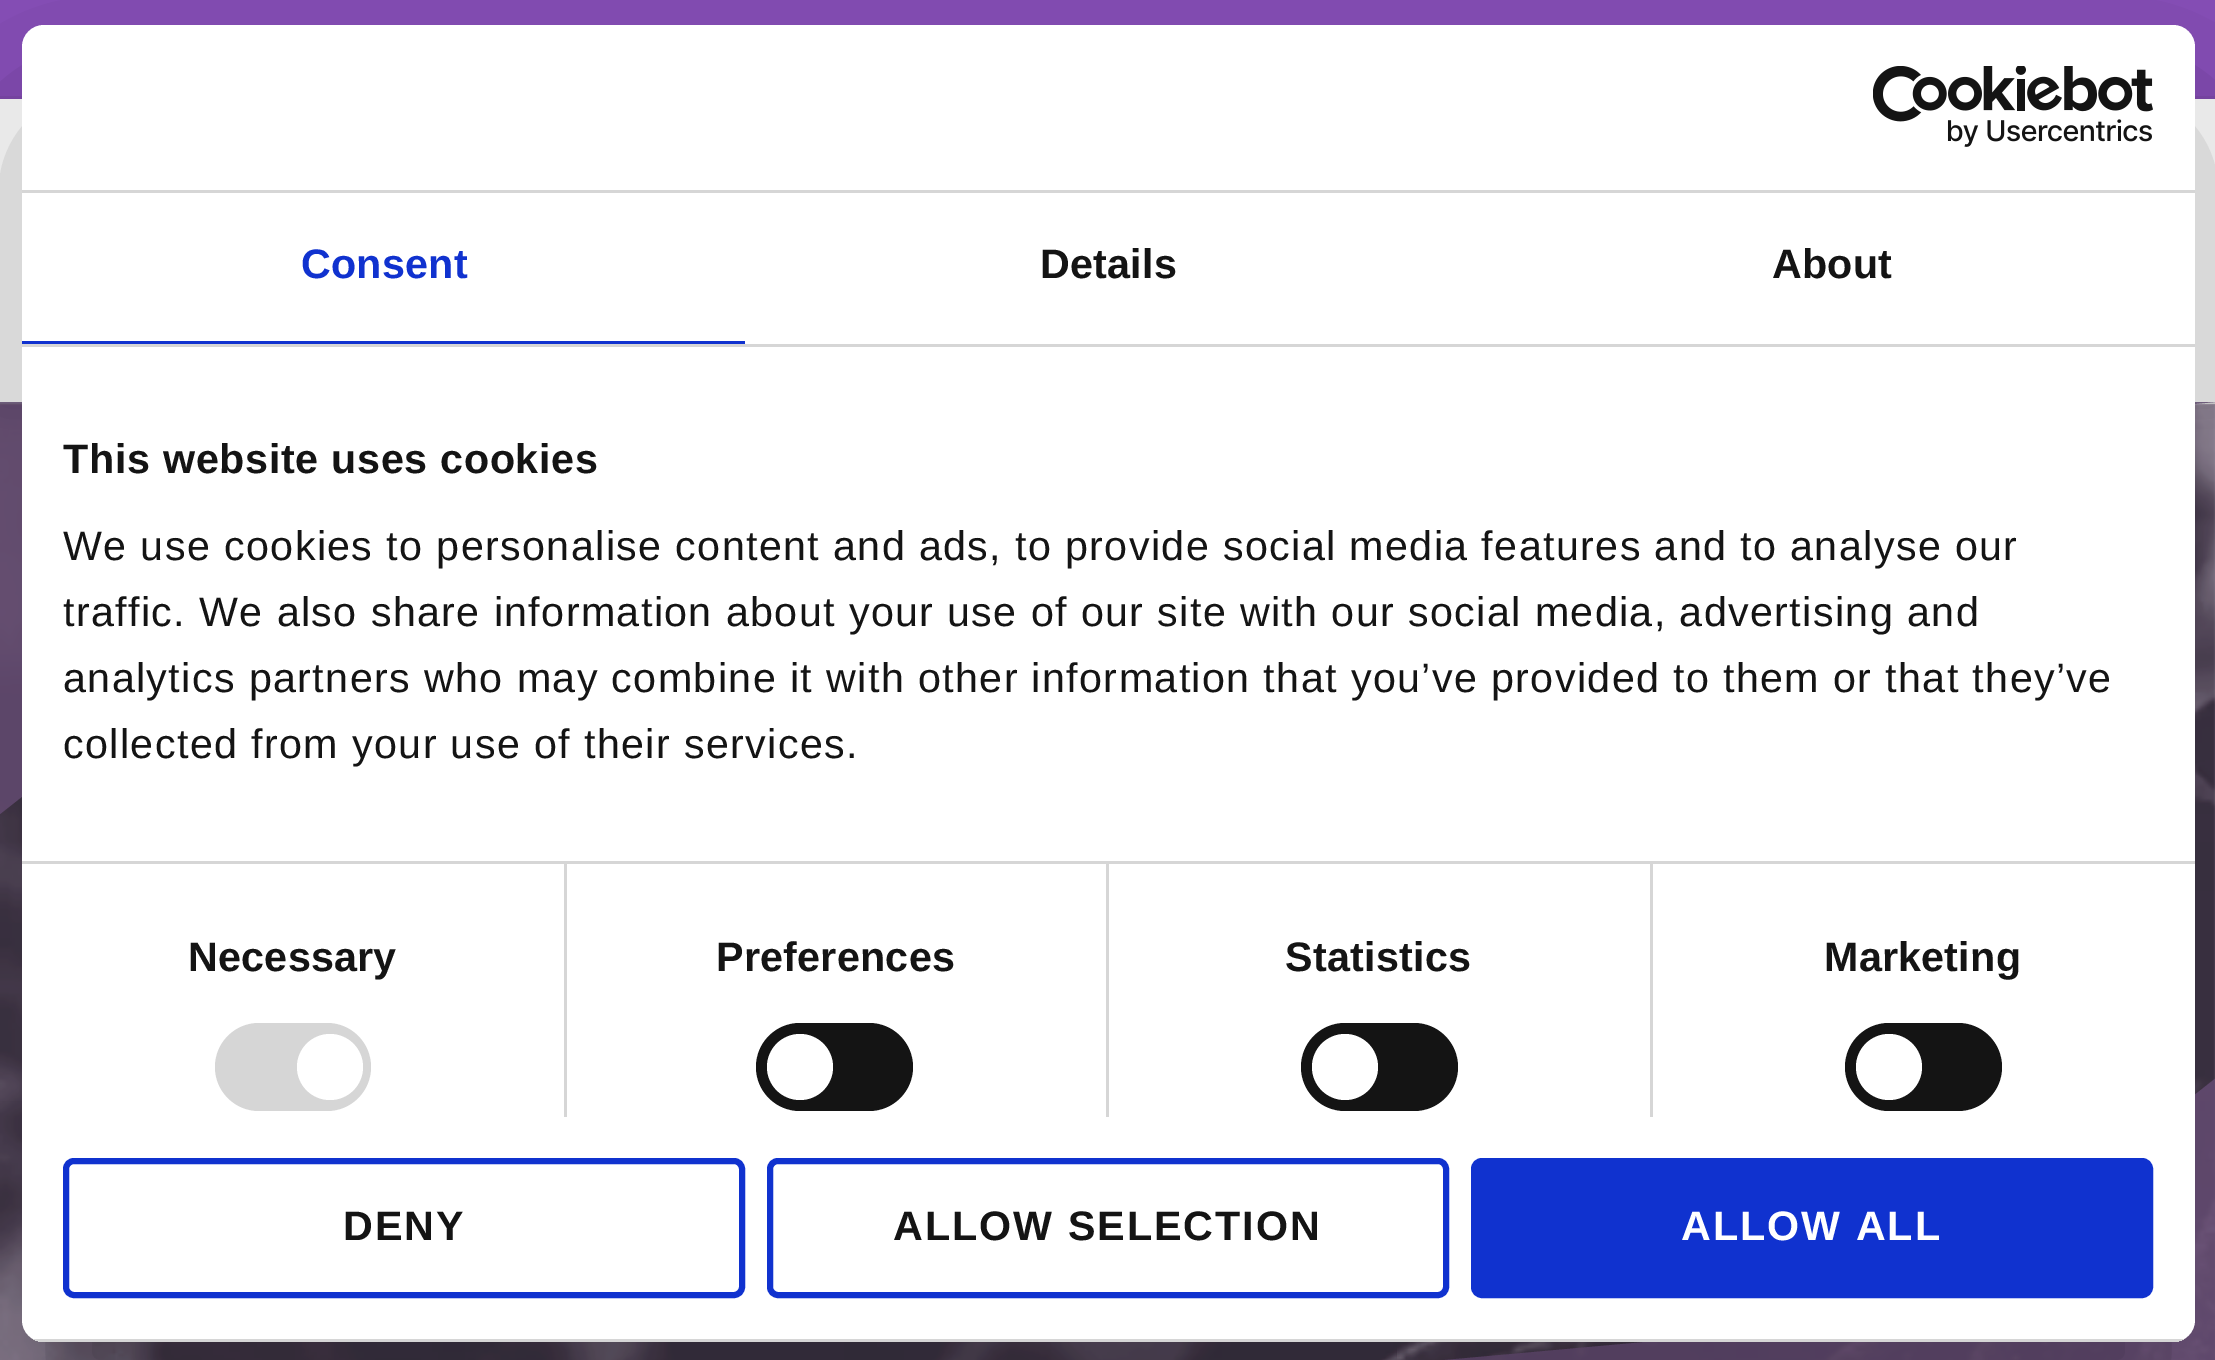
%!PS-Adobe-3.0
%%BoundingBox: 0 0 2215 1360
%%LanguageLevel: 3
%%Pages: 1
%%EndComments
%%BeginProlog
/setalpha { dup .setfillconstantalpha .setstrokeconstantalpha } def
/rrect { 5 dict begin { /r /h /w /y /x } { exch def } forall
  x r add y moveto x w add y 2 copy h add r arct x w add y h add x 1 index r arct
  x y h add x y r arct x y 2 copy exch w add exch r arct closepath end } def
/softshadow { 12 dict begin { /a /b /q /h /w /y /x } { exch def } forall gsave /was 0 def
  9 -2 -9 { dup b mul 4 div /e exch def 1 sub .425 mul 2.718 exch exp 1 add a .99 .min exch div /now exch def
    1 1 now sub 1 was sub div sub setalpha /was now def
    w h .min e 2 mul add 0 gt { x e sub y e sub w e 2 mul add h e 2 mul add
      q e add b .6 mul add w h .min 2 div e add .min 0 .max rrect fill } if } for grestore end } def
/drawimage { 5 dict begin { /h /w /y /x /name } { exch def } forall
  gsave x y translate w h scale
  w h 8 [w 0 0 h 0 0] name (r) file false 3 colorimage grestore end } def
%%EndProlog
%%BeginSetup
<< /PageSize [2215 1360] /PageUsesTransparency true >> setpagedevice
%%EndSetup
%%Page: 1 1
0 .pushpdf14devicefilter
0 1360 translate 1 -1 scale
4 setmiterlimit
1 setgray
0 0 2215 1360 rectfill
0.769 0.718 0.796 setrgbcolor
0 404 2215 956 rectfill
(images/1.raw) 0 403 2215 957 drawimage
0.84 setalpha
0.459 0.345 0.522 setrgbcolor
newpath 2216 402 moveto 0 402 lineto 0 814 lineto 305 574 lineto closepath fill
gsave
newpath 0 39 moveto 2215 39 lineto 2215 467 lineto 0 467 lineto closepath 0 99 moveto 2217 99 lineto 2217 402 lineto 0 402 lineto closepath eoclip newpath
1 setalpha
0 setgray
0 102 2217 302 0 20.5 0.12 softshadow
grestore
1 setalpha
0.529 0.31 0.718 setrgbcolor
0 0 2215 96 rectfill
0.502 0.294 0.682 setrgbcolor
0 96 2215 3 rectfill
0.9 setalpha
1 setgray
0 401 2215 1 rectfill
0.87 setalpha
0.459 0.345 0.522 setrgbcolor
newpath 0 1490 moveto 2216 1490 lineto 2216 1078 lineto 1912 1318 lineto closepath fill
gsave
newpath 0 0 moveto 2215 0 lineto 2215 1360 lineto 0 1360 lineto closepath 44 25 moveto 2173 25 lineto 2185 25 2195 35 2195 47 curveto 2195 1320 lineto 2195 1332 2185 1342 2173 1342 curveto 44 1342 lineto 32 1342 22 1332 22 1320 curveto 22 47 lineto 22 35 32 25 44 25 curveto closepath eoclip newpath
1 setalpha
0 setgray
22 113 2173 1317 22 93.5 0.3 softshadow
grestore
1 setalpha
1 setgray
22 25 2173 1317 22 rrect fill
0.839 setgray
22 190 2173 3 rectfill
(images/2.raw) 1873 66 280 81 drawimage
22 344 2173 3 rectfill
0.063 0.196 0.812 setrgbcolor
22 341 723 3 rectfill
0.839 setgray
22 861 2173 3 rectfill
564 864 3 253 rectfill
215 1023 156 88 44 rrect fill
1 setgray
newpath 330 1067 33 0 360 arc closepath fill
0.839 setgray
1106 864 3 253 rectfill
0.078 setgray
756 1023 157 88 44 rrect fill
1 setgray
newpath 800 1067 33 0 360 arc closepath fill
0.839 setgray
1650 864 3 253 rectfill
0.078 setgray
1301 1023 157 88 44 rrect fill
1 setgray
newpath 1345 1067 33 0 360 arc closepath fill
0.078 setgray
1845 1023 157 88 44 rrect fill
1 setgray
newpath 1889 1067 33 0 360 arc closepath fill
gsave
22 25 2173 1317 22 rrect clip newpath
0.839 setgray
33 1339 2151 3 rectfill
grestore
0.063 0.196 0.812 setrgbcolor
6 setlinewidth
66 1161 676 134 8 rrect stroke
770 1161 676 134 8 rrect stroke
1474 1161 676 134 8 rrect gsave fill grestore
stroke
/LiberationSans-Bold [41.25 0 0 -41.25 0 0] selectfont
301 278 moveto 0.25 0 (Consent) ashow
0.078 setgray
1040 278 moveto 0.25 0 (Details) ashow
1772 278 moveto 0.25 0 (About) ashow
63 473 moveto 0.7 0 (This website uses cookies) ashow
/LiberationSans-Regular [41.25 0 0 -41.25 0 0] selectfont
63 560 moveto 1.38 0 (We use cookies to personalise content and ads, to provide social media features and to analyse our) ashow
63 626 moveto 1.38 0 (traffic. We also share information about your use of our site with our social media, advertising and) ashow
63 692 moveto 1.38 0 (analytics partners who may combine it with other information that you’ve provided to them or that they’ve) ashow
63 758 moveto 1.38 0 (collected from your use of their services.) ashow
/LiberationSans-Bold [41.25 0 0 -41.25 0 0] selectfont
188 971 moveto 0.25 0 (Necessary) ashow
716 971 moveto 0.25 0 (Preferences) ashow
1285 971 moveto 0.25 0 (Statistics) ashow
1824 971 moveto 0.25 0 (Marketing) ashow
343 1240 moveto 2 0 (DENY) ashow
893 1240 moveto 2 0 (ALLOW SELECTION) ashow
1 setgray
1681 1240 moveto 2 0 (ALLOW ALL) ashow
.poppdf14devicefilter showpage
%%EOF
